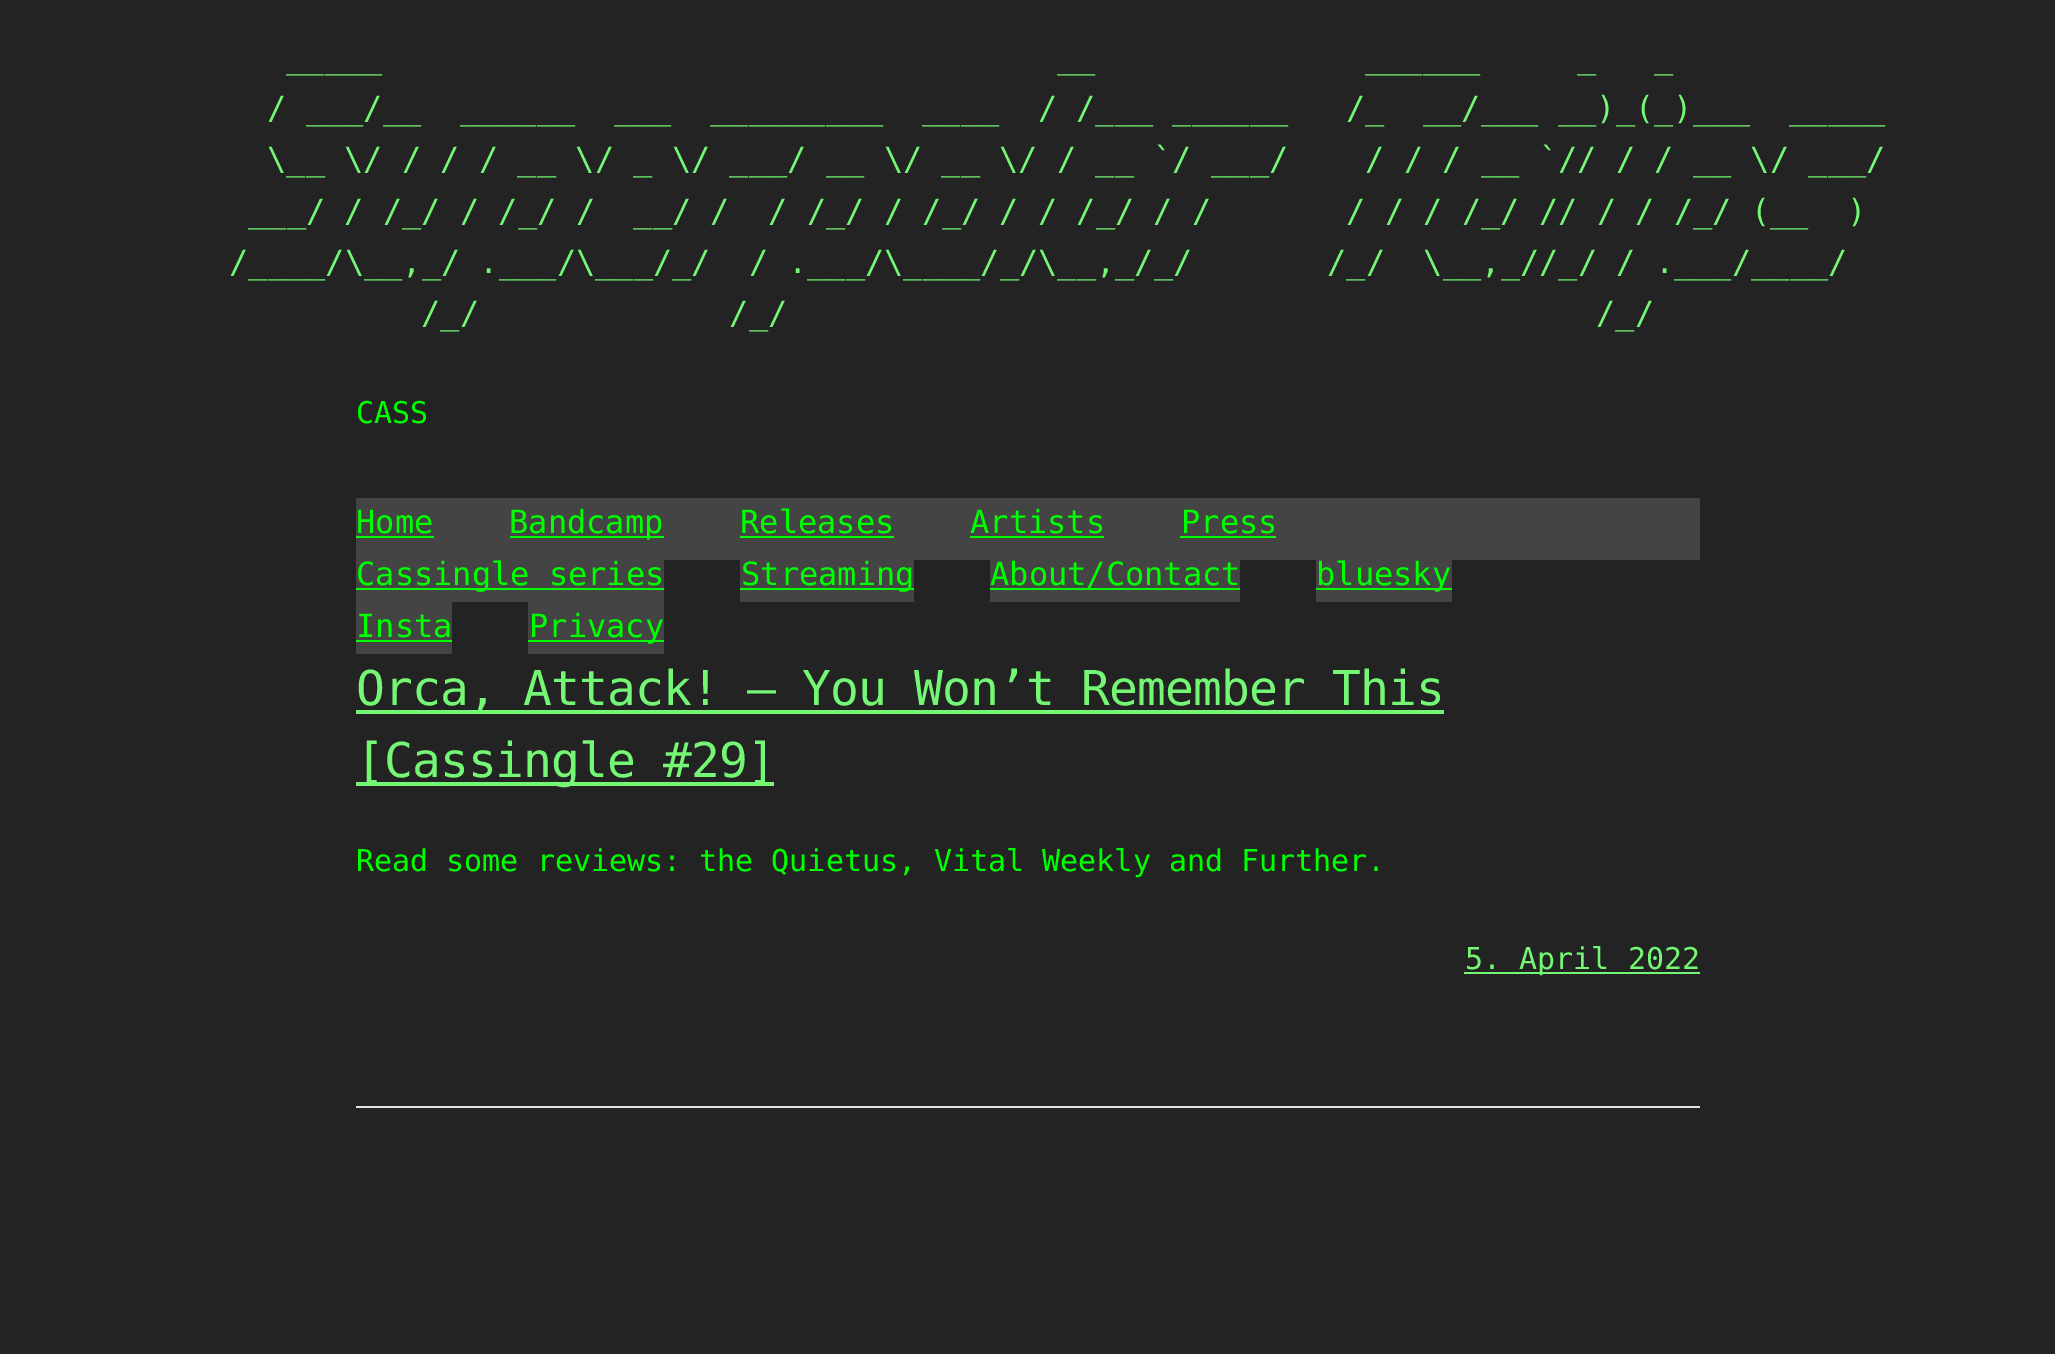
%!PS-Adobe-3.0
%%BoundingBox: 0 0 2055 1354
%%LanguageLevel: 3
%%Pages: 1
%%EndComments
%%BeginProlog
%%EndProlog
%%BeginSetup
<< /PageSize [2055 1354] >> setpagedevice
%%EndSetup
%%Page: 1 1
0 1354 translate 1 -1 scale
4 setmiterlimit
0.137 setgray
0 0 2055 1354 rectfill
0.267 setgray
356 498 1344 62 rectfill
0 1 0 setrgbcolor
356 536 78 2 rectfill
510 536 154 2 rectfill
740 536 154 2 rectfill
970 536 134 2 rectfill
1180 536 96 2 rectfill
0.267 setgray
356 560 308 42 rectfill
0 1 0 setrgbcolor
356 588 308 2 rectfill
0.267 setgray
740 560 174 42 rectfill
0 1 0 setrgbcolor
740 588 174 2 rectfill
0.267 setgray
990 560 250 42 rectfill
0 1 0 setrgbcolor
990 588 250 2 rectfill
0.267 setgray
1316 560 136 42 rectfill
0 1 0 setrgbcolor
1316 588 136 2 rectfill
0.267 setgray
356 602 96 52 rectfill
0 1 0 setrgbcolor
356 640 96 2 rectfill
0.267 setgray
528 602 136 52 rectfill
0 1 0 setrgbcolor
528 640 136 2 rectfill
0.455 0.969 0.455 setrgbcolor
356 710 1088 4 rectfill
356 782 418 4 rectfill
1464 972 236 2 rectfill
0.882 setgray
356 1106 1344 2 rectfill
/DejaVuSansMono-Regular [32 0 0 -32 0 0] selectfont
0.455 0.969 0.455 setrgbcolor
286 68 moveto (_____                                   __              ______     _   _) show
267 119 moveto (/ ___/__  ______  ___  _________  ____  / /___ ______   /_  __/___ __\)_\(_\)___  _____) show
267 170 moveto (\\__ \\/ / / / __ \\/ _ \\/ ___/ __ \\/ __ \\/ / __ `/ ___/    / / / __ `// / / __ \\/ ___/) show
248 222 moveto (___/ / /_/ / /_/ /  __/ /  / /_/ / /_/ / / /_/ / /       / / / /_/ // / / /_/ \(__  \)) show
229 273 moveto (/____/\\__,_/ .___/\\___/_/  / .___/\\____/_/\\__,_/_/       /_/  \\__,_//_/ / .___/____/) show
421 324 moveto (/_/             /_/                                          /_/) show
/DejaVuSansMono-Regular [30 0 0 -30 0 0] selectfont
0 1 0 setrgbcolor
356 423 moveto (CASS) show
/DejaVuSansMono-Regular [32 0 0 -32 0 0] selectfont
356 533 moveto (Home) show
509 533 moveto (Bandcamp) show
740 533 moveto (Releases) show
970 533 moveto (Artists) show
1181 533 moveto (Press) show
356 585 moveto (Cassingle series) show
741 585 moveto (Streaming) show
990 585 moveto (About/Contact) show
1316 585 moveto (bluesky) show
356 637 moveto (Insta) show
529 637 moveto (Privacy) show
/DejaVuSansMono-Regular [48 0 0 -48 0 0] selectfont
0.455 0.969 0.455 setrgbcolor
356 705 moveto -1 0 (Orca, Attack! – You Won’t Remember This) ashow
356 777 moveto -1 0 ([Cassingle #29]) ashow
/DejaVuSansMono-Regular [30 0 0 -30 0 0] selectfont
0 1 0 setrgbcolor
356 871 moveto (Read some reviews: the Quietus, Vital Weekly and Further.) show
0.455 0.969 0.455 setrgbcolor
1465 969 moveto (5. April 2022) show
showpage
%%EOF
